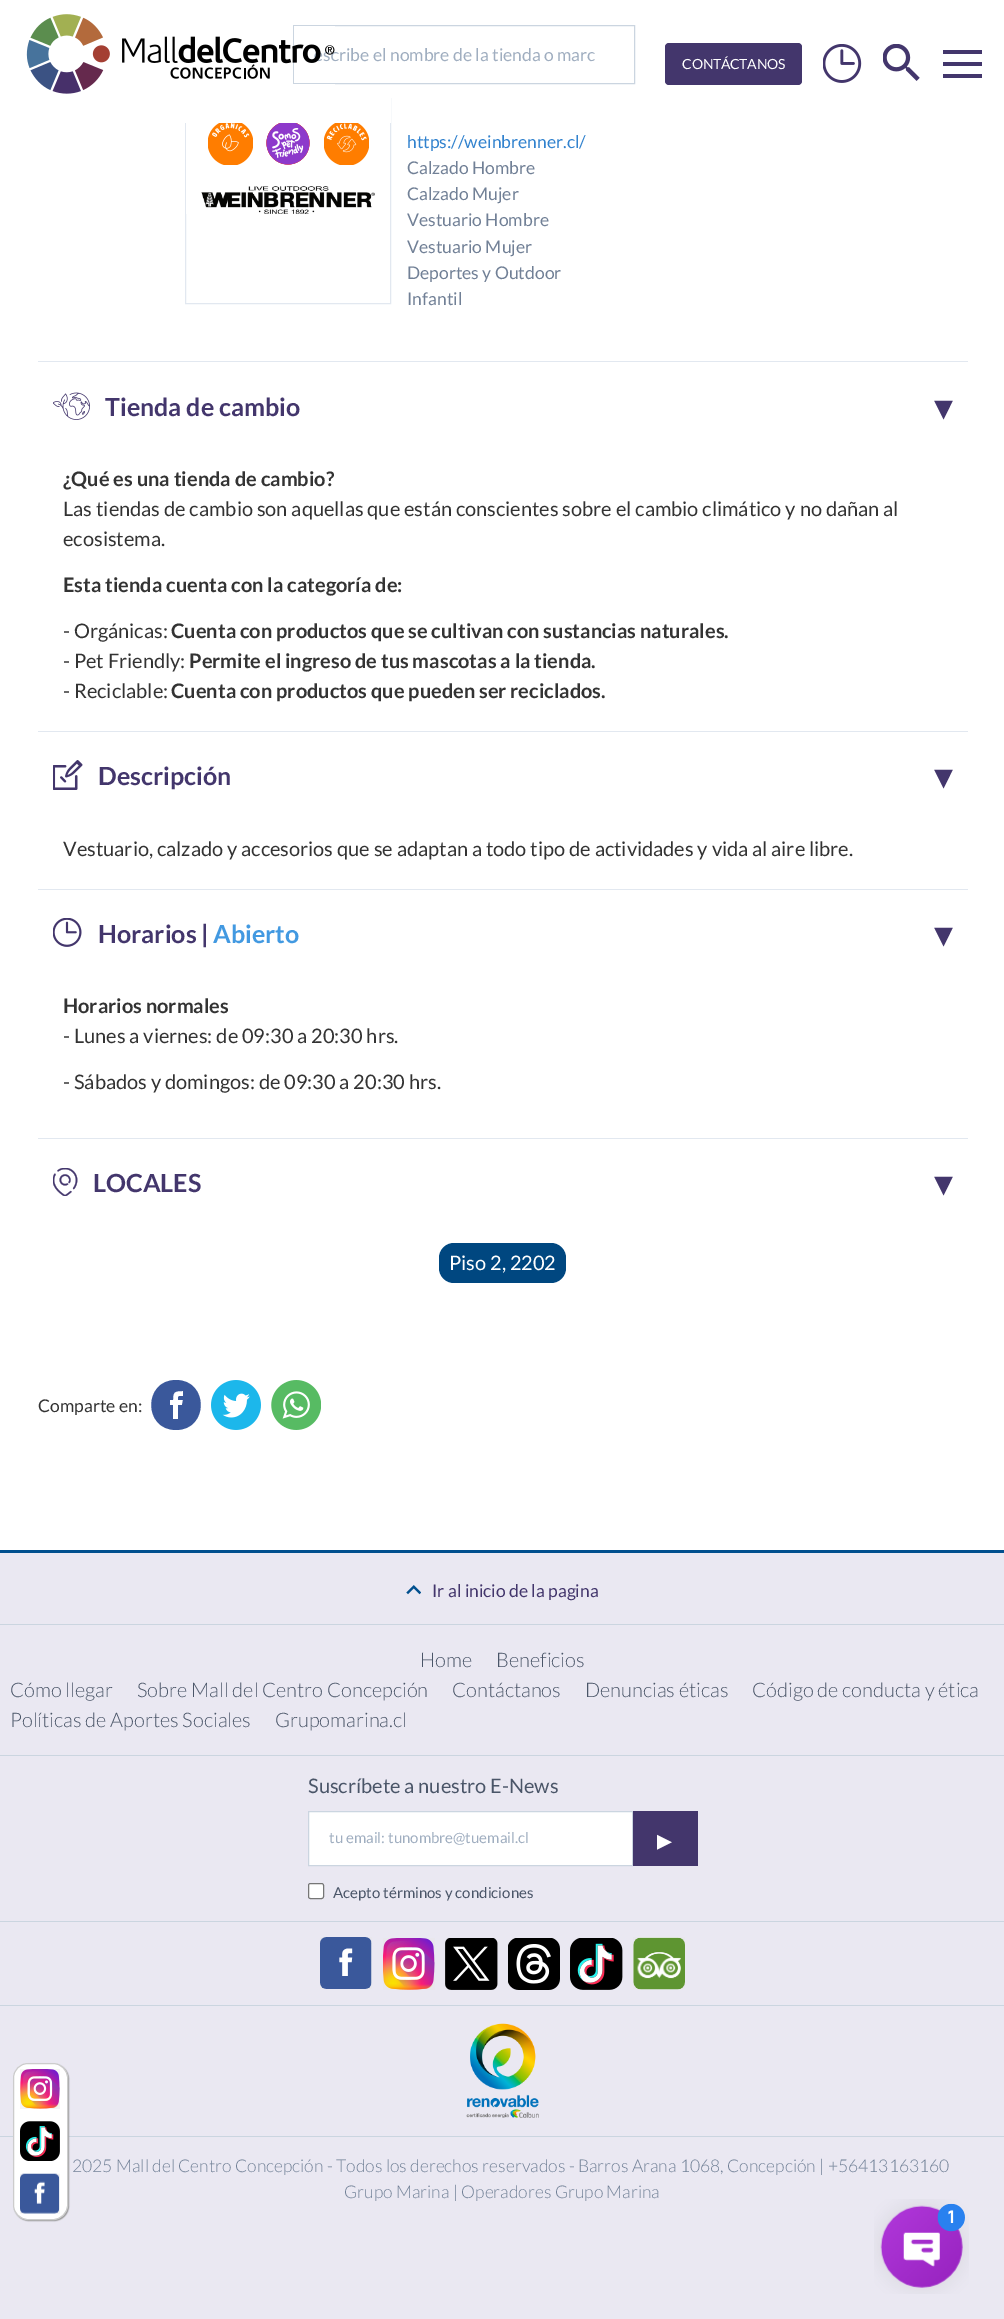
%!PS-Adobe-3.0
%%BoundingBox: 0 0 1004 2319
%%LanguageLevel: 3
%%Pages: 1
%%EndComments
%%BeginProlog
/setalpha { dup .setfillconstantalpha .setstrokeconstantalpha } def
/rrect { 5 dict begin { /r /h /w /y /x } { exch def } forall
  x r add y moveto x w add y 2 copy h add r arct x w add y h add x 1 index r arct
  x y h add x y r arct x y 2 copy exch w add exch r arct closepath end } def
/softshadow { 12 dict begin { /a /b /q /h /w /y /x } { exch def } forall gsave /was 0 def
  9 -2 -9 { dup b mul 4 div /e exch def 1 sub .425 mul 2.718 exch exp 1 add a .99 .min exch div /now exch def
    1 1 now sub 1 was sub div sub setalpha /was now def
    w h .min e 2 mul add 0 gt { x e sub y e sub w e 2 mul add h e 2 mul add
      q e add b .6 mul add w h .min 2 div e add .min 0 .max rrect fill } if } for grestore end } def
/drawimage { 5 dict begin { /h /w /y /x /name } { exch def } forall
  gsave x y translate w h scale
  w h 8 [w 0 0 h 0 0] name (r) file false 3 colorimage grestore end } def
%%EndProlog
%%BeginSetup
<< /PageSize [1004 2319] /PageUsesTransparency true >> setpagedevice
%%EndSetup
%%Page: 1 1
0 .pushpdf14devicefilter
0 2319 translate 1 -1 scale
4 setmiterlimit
1 setgray
0 0 1004 2319 rectfill
0.886 0.91 0.941 setrgbcolor
185.5 98.5 205 205 rectstroke
1 setgray
185 98 206 25 rectfill
0.796 0.835 0.878 setrgbcolor
293.5 25.5 341 58 rectstroke
0.263 0.212 0.424 setrgbcolor
665 43 137 42 4 rrect fill
(images/2.raw) 823 44 39 39 drawimage
(images/3.raw) 883 44 37 37 drawimage
gsave
943 44 40 40 rectclip
newpath 942 50 moveto 982 50 lineto 982 54 lineto 942 54 lineto closepath 942 62 moveto 982 62 lineto 982 66 lineto 942 66 lineto closepath 942 74 moveto 982 74 lineto 982 78 lineto 942 78 lineto closepath fill
grestore
(images/4.raw) 186 123 204 91 drawimage
(images/5.raw) 208 123 45 42 drawimage
(images/6.raw) 266 123 44 42 drawimage
(images/7.raw) 324 123 45 42 drawimage
0.886 0.91 0.941 setrgbcolor
38 361 930 1 rectfill
(images/8.raw) 53 392 37 28 drawimage
38 731 930 1 rectfill
(images/9.raw) 53 760 30 30 drawimage
38 889 930 1 rectfill
(images/10.raw) 53 918 29 29 drawimage
38 1138 930 1 rectfill
(images/11.raw) 53 1168 25 28 drawimage
0 0.278 0.502 setrgbcolor
439 1243 127 40 15 rrect fill
0.227 0.345 0.608 setrgbcolor
newpath 173 1419 moveto 178 1419 lineto 178 1405 lineto 182 1405 lineto 183 1400 lineto 178 1400 lineto 178 1396 178 1396 183 1396 curveto 183 1391 lineto 174 1391 173 1392 173 1400 curveto 170 1400 lineto 170 1405 lineto 173 1405 lineto closepath 176 1430 moveto 143 1430 143 1380 176 1380 curveto 209 1380 209 1430 176 1430 curveto closepath fill
(images/12.raw) 211 1380 50 50 drawimage
(images/13.raw) 271 1380 50 50 drawimage
0.918 0.91 0.949 setrgbcolor
0 1553 1004 766 rectfill
0 0.31 0.557 setrgbcolor
0 1550 1004 3 rectfill
0.796 0.835 0.878 setrgbcolor
0 1624 1004 1 rectfill
(images/14.raw) 406 1585 15 10 drawimage
0 1755 1004 1 rectfill
0 1921 1004 1 rectfill
1 setgray
newpath 308.5 1811.5 moveto 632.5 1811.5 lineto 632.5 1865.5 lineto 308.5 1865.5 lineto closepath gsave fill grestore
0.796 0.835 0.878 setrgbcolor
stroke
0.263 0.212 0.424 setrgbcolor
633 1811 65 55 rectfill
1 setgray
308.5 1883.5 15 15 2 rrect gsave fill grestore
0.463 setgray
stroke
0.796 0.835 0.878 setrgbcolor
0 2005 1004 1 rectfill
(images/15.raw) 320 1937 52 52 drawimage
(images/16.raw) 383 1938 52 52 drawimage
(images/17.raw) 445 1938 53 52 drawimage
(images/18.raw) 508 1938 52 52 drawimage
(images/19.raw) 570 1938 53 52 drawimage
(images/20.raw) 633 1937 52 53 drawimage
0 2136 1004 1 rectfill
(images/21.raw) 466 2023 73 95 drawimage
0.6 setgray
14 2064 55 157 15 0.5 1 softshadow
1 setgray
13.5 2063.5 54 156 14.5 rrect gsave fill grestore
0.8 setgray
stroke
(images/22.raw) 20 2069 40 40 drawimage
(images/23.raw) 20 2121 40 40 drawimage
(images/24.raw) 20 2173 40 41 drawimage
(images/25.raw) 874 2199 95 95 drawimage
/Lato-Regular [17.5 0 0 -17.5 0 0] selectfont
0.627 0.682 0.753 setrgbcolor
314 61 moveto (escribe el nombre de la tienda o marc) show
(images/1.raw) 26 14 309 80 drawimage
/Lato-Regular [14 0 0 -14 0 0] selectfont
1 setgray
682 69 moveto (CON) show
713 69 moveto -1 0 (T) ashow
721 69 moveto (Á) show
730 69 moveto (C) show
739 69 moveto -1 0 (T) ashow
747 69 moveto (ANOS) show
/Lato-Regular [17.5 0 0 -17.5 0 0] selectfont
0.192 0.51 0.808 setrgbcolor
407 148 moveto (https://weinbrenner.cl/) show
0.443 0.502 0.588 setrgbcolor
407 174 moveto (Calzado Hombre) show
407 200 moveto (Calzado Mujer) show
407 226 moveto (Vestuario Hombre) show
407 253 moveto (Vestuario Mujer) show
407 279 moveto (Deportes y Outdoor) show
407 305 moveto (Infantil) show
/Lato-Bold [25 0 0 -25 0 0] selectfont
0.263 0.212 0.424 setrgbcolor
105 416 moveto (Tienda de cambio) show
/DejaVuSans-Regular [38 0 0 -38 0 0] selectfont
934 420 moveto (▾) show
/Lato-Bold [20 0 0 -20 0 0] selectfont
0.2 setgray
63 486 moveto (¿Qué es una tienda de cambio?) show
/Lato-Regular [20 0 0 -20 0 0] selectfont
63 516 moveto (Las tiendas de cambio son aquellas que están conscientes sobre el cambio climático y no dañan al) show
63 546 moveto (ecosistema.) show
/Lato-Bold [20 0 0 -20 0 0] selectfont
63 592 moveto (Esta tienda cuenta con la categoría de:) show
/Lato-Regular [20 0 0 -20 0 0] selectfont
63 638 moveto (- Orgánicas:) show
/Lato-Bold [20 0 0 -20 0 0] selectfont
171 638 moveto (Cuenta con productos que se cultivan con sustancias naturales.) show
/Lato-Regular [20 0 0 -20 0 0] selectfont
63 668 moveto (- Pet Friendly:) show
/Lato-Bold [20 0 0 -20 0 0] selectfont
189 668 moveto (Permite el ingreso de tus mascotas a la tienda.) show
/Lato-Regular [20 0 0 -20 0 0] selectfont
63 698 moveto (- Reciclable:) show
/Lato-Bold [20 0 0 -20 0 0] selectfont
171 698 moveto (Cuenta con productos que pueden ser reciclados.) show
/Lato-Bold [25 0 0 -25 0 0] selectfont
0.263 0.212 0.424 setrgbcolor
98 785 moveto (Descripción) show
/DejaVuSans-Regular [38 0 0 -38 0 0] selectfont
934 789 moveto (▾) show
/Lato-Regular [20 0 0 -20 0 0] selectfont
0.2 setgray
63 856 moveto (Vestuario, calzado y accesorios que se adaptan a todo tipo de actividades y vida al aire libre.) show
/Lato-Bold [25 0 0 -25 0 0] selectfont
0.263 0.212 0.424 setrgbcolor
98 943 moveto (Horarios |) show
0.259 0.6 0.882 setrgbcolor
213 943 moveto (Abierto) show
/DejaVuSans-Regular [38 0 0 -38 0 0] selectfont
0.263 0.212 0.424 setrgbcolor
934 947 moveto (▾) show
/Lato-Bold [20 0 0 -20 0 0] selectfont
0.2 setgray
63 1013 moveto (Horarios normales) show
/Lato-Regular [20 0 0 -20 0 0] selectfont
63 1043 moveto (- Lunes a viernes: de 09:30 a 20:30 hrs.) show
63 1089 moveto (- Sábados y domingos: de 09:30 a 20:30 hrs.) show
/Lato-Bold [25 0 0 -25 0 0] selectfont
0.263 0.212 0.424 setrgbcolor
93 1192 moveto (LOCALES) show
/DejaVuSans-Regular [38 0 0 -38 0 0] selectfont
934 1196 moveto (▾) show
/Lato-Regular [20 0 0 -20 0 0] selectfont
1 setgray
449 1270 moveto (Piso 2, 2202) show
/Lato-Regular [17.5 0 0 -17.5 0 0] selectfont
0.2 setgray
38 1412 moveto (Comparte en:) show
0.263 0.212 0.424 setrgbcolor
432 1597 moveto (Ir al inicio de la pagina) show
/Lato-Light [20 0 0 -20 0 0] selectfont
0.29 0.333 0.408 setrgbcolor
420 1667 moveto (Home) show
496 1667 moveto (Beneficios) show
10 1697 moveto (Cómo llegar) show
137 1697 moveto (Sobre Mall del Centro Concepción) show
452 1697 moveto (Contáctanos) show
585 1697 moveto (Denuncias éticas) show
752 1697 moveto (Código de conducta y ética) show
10 1727 moveto (Políticas de Aportes Sociales) show
275 1727 moveto (Grupomarina.cl) show
/Lato-Regular [20 0 0 -20 0 0] selectfont
308 1793 moveto (Suscríbete a nuestro E-News) show
/Lato-Regular [15 0 0 -15 0 0] selectfont
0.627 0.682 0.753 setrgbcolor
329 1843 moveto (tu email: tunombre@tuemail.cl) show
/DejaVuSans-Regular [30 0 0 -30 0 0] selectfont
1 setgray
657 1850 moveto (▸) show
/Lato-Regular [15 0 0 -15 0 0] selectfont
0.29 0.333 0.408 setrgbcolor
333 1898 moveto (Acepto términos y condiciones) show
/Lato-Light [17.5 0 0 -17.5 0 0] selectfont
0.443 0.502 0.588 setrgbcolor
72 2172 moveto (2025 Mall del Centro Concepción - Todos los derechos reservados - Barros Arana 1068, Concepción | +56413163160) show
344 2198 moveto (Grupo Marina | Operadores Grupo Marina) show
.poppdf14devicefilter showpage
%%EOF
